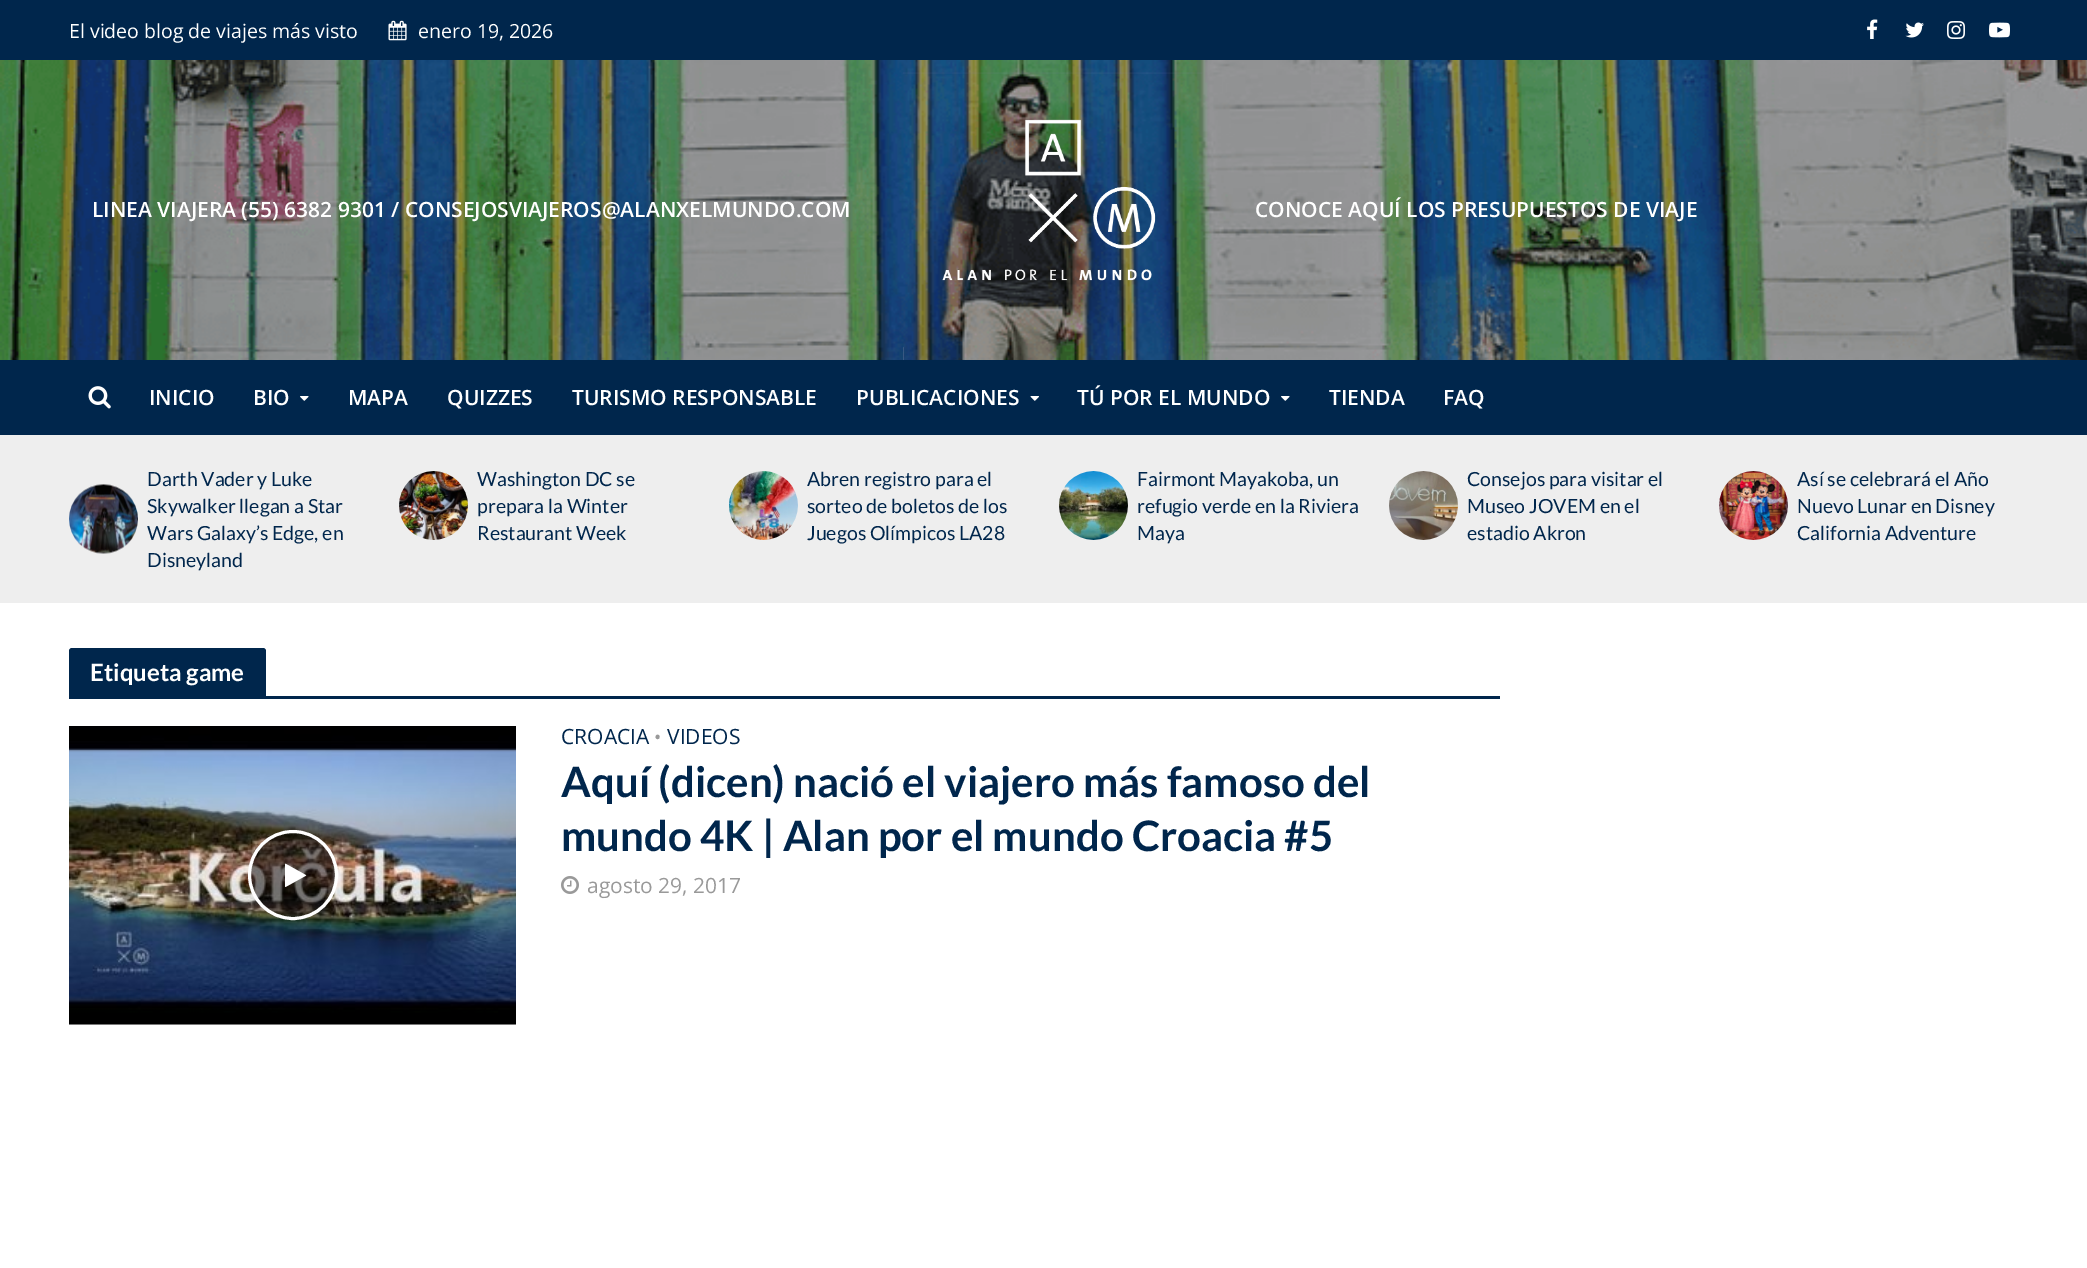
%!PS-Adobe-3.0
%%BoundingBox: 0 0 2087 1268
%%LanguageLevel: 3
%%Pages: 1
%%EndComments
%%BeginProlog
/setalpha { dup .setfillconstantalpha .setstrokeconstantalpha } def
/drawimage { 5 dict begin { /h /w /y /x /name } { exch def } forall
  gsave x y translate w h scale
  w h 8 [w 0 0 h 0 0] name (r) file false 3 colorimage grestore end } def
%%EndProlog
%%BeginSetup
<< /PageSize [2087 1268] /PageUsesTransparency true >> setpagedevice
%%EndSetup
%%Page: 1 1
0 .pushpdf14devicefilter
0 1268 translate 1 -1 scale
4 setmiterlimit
1 setgray
0 0 2087 1268 rectfill
0 0.149 0.298 setrgbcolor
0 0 2087 60 rectfill
(images/1.raw) 388 20 19 21 drawimage
(images/2.raw) 1867 19 11 20 drawimage
(images/3.raw) 1905 22 19 16 drawimage
(images/4.raw) 1947 21 18 18 drawimage
(images/5.raw) 1989 22 21 16 drawimage
(images/6.raw) 0 60 2087 300 drawimage
(images/7.raw) 903 72 300 288 drawimage
0 360 2087 75 rectfill
(images/8.raw) 88 386 23 23 drawimage
(images/9.raw) 300 396 9 5 drawimage
(images/10.raw) 1030 396 9 5 drawimage
(images/9.raw) 1281 396 9 5 drawimage
0.933 setgray
0 435 2087 168 rectfill
(images/11.raw) 69 484 69 70 drawimage
(images/12.raw) 399 471 69 69 drawimage
(images/13.raw) 729 471 69 69 drawimage
(images/14.raw) 1059 471 69 69 drawimage
(images/15.raw) 1389 471 69 69 drawimage
(images/16.raw) 1719 471 69 69 drawimage
0 0.149 0.298 setrgbcolor
newpath 72 648 moveto 263 648 lineto 264.5 648 266 649.5 266 651 curveto 266 696 lineto 69 696 lineto 69 651 lineto 69 649.5 70.5 648 72 648 curveto closepath fill
69 696 1431 3 rectfill
0.953 setgray
69 1024 447 1 rectfill
(images/17.raw) 69 726 447 299 drawimage
0.5 setalpha
0 setgray
newpath 293 875 43.5 0 360 arc closepath fill
1 setalpha
1 setgray
3 setlinewidth
newpath 293 875 43.5 0 360 arc closepath stroke
(images/18.raw) 285 863 22 24 drawimage
(images/19.raw) 561 876 18 18 drawimage
/OpenSans-Regular [19.5 0 0 -19.5 0 0] selectfont
69 38 moveto (El video blog de viajes más visto) show
418 38 moveto (enero 19, 2026) show
/OpenSans-SemiBold [21 0 0 -21 0 0] selectfont
92 217 moveto (LINEA VIAJERA \(55\) 6382 9301 / CONSEJOSVIAJEROS@ALANXELMUNDO.COM) show
1255 217 moveto (CONOCE AQUÍ LOS PRESUPUESTOS DE VIAJE) show
149 405 moveto (INICIO) show
253 405 moveto (BIO) show
348 405 moveto (MAPA) show
447 405 moveto (QUIZZES) show
572 405 moveto (TURISMO RESPONSABLE) show
856 405 moveto (PUBLICACIONES) show
1077 405 moveto (TÚ POR EL MUNDO) show
1329 405 moveto (TIENDA) show
1443 405 moveto (FAQ) show
/Lato-Regular [19.5 0 0 -19.5 0 0] selectfont
0 0.149 0.298 setrgbcolor
147 486 moveto (Darth Vader y Luke) show
147 513 moveto (Skywalker llegan a Star) show
147 540 moveto (Wars Galaxy’s Edge, en) show
147 567 moveto (Disneyland) show
477 486 moveto (Washington DC se) show
477 513 moveto (prepara la Winter) show
477 540 moveto (Restaurant Week) show
807 486 moveto (Abren registro para el) show
807 513 moveto (sorteo de boletos de los) show
807 540 moveto (Juegos Olímpicos LA28) show
1137 486 moveto (Fairmont Mayakoba, un) show
1137 513 moveto (refugio verde en la Riviera) show
1137 540 moveto (Maya) show
1467 486 moveto (Consejos para visitar el) show
1467 513 moveto (Museo JOVEM en el) show
1467 540 moveto (estadio Akron) show
1797 486 moveto (Así se celebrará el Año) show
1797 513 moveto (Nuevo Lunar en Disney) show
1797 540 moveto (California Adventure) show
/Lato-Bold [24 0 0 -24 0 0] selectfont
1 setgray
90 681 moveto (Etiqueta game) show
/OpenSans-Regular [21 0 0 -21 0 0] selectfont
0 0.149 0.298 setrgbcolor
561 744 moveto (CROACIA) show
/OpenSans-Regular [19.5 0 0 -19.5 0 0] selectfont
0.6 setgray
654 744 moveto (•) show
/OpenSans-Regular [21 0 0 -21 0 0] selectfont
0 0.149 0.298 setrgbcolor
667 744 moveto (VIDEOS) show
/Lato-Bold [42 0 0 -42 0 0] selectfont
561 797 moveto (Aquí \(dicen\) nació el viajero más famoso del) show
561 851 moveto (mundo 4K | Alan por el mundo Croacia #5) show
/OpenSans-Regular [21 0 0 -21 0 0] selectfont
0.6 setgray
587 893 moveto (agosto 29, 2017) show
.poppdf14devicefilter showpage
%%EOF
